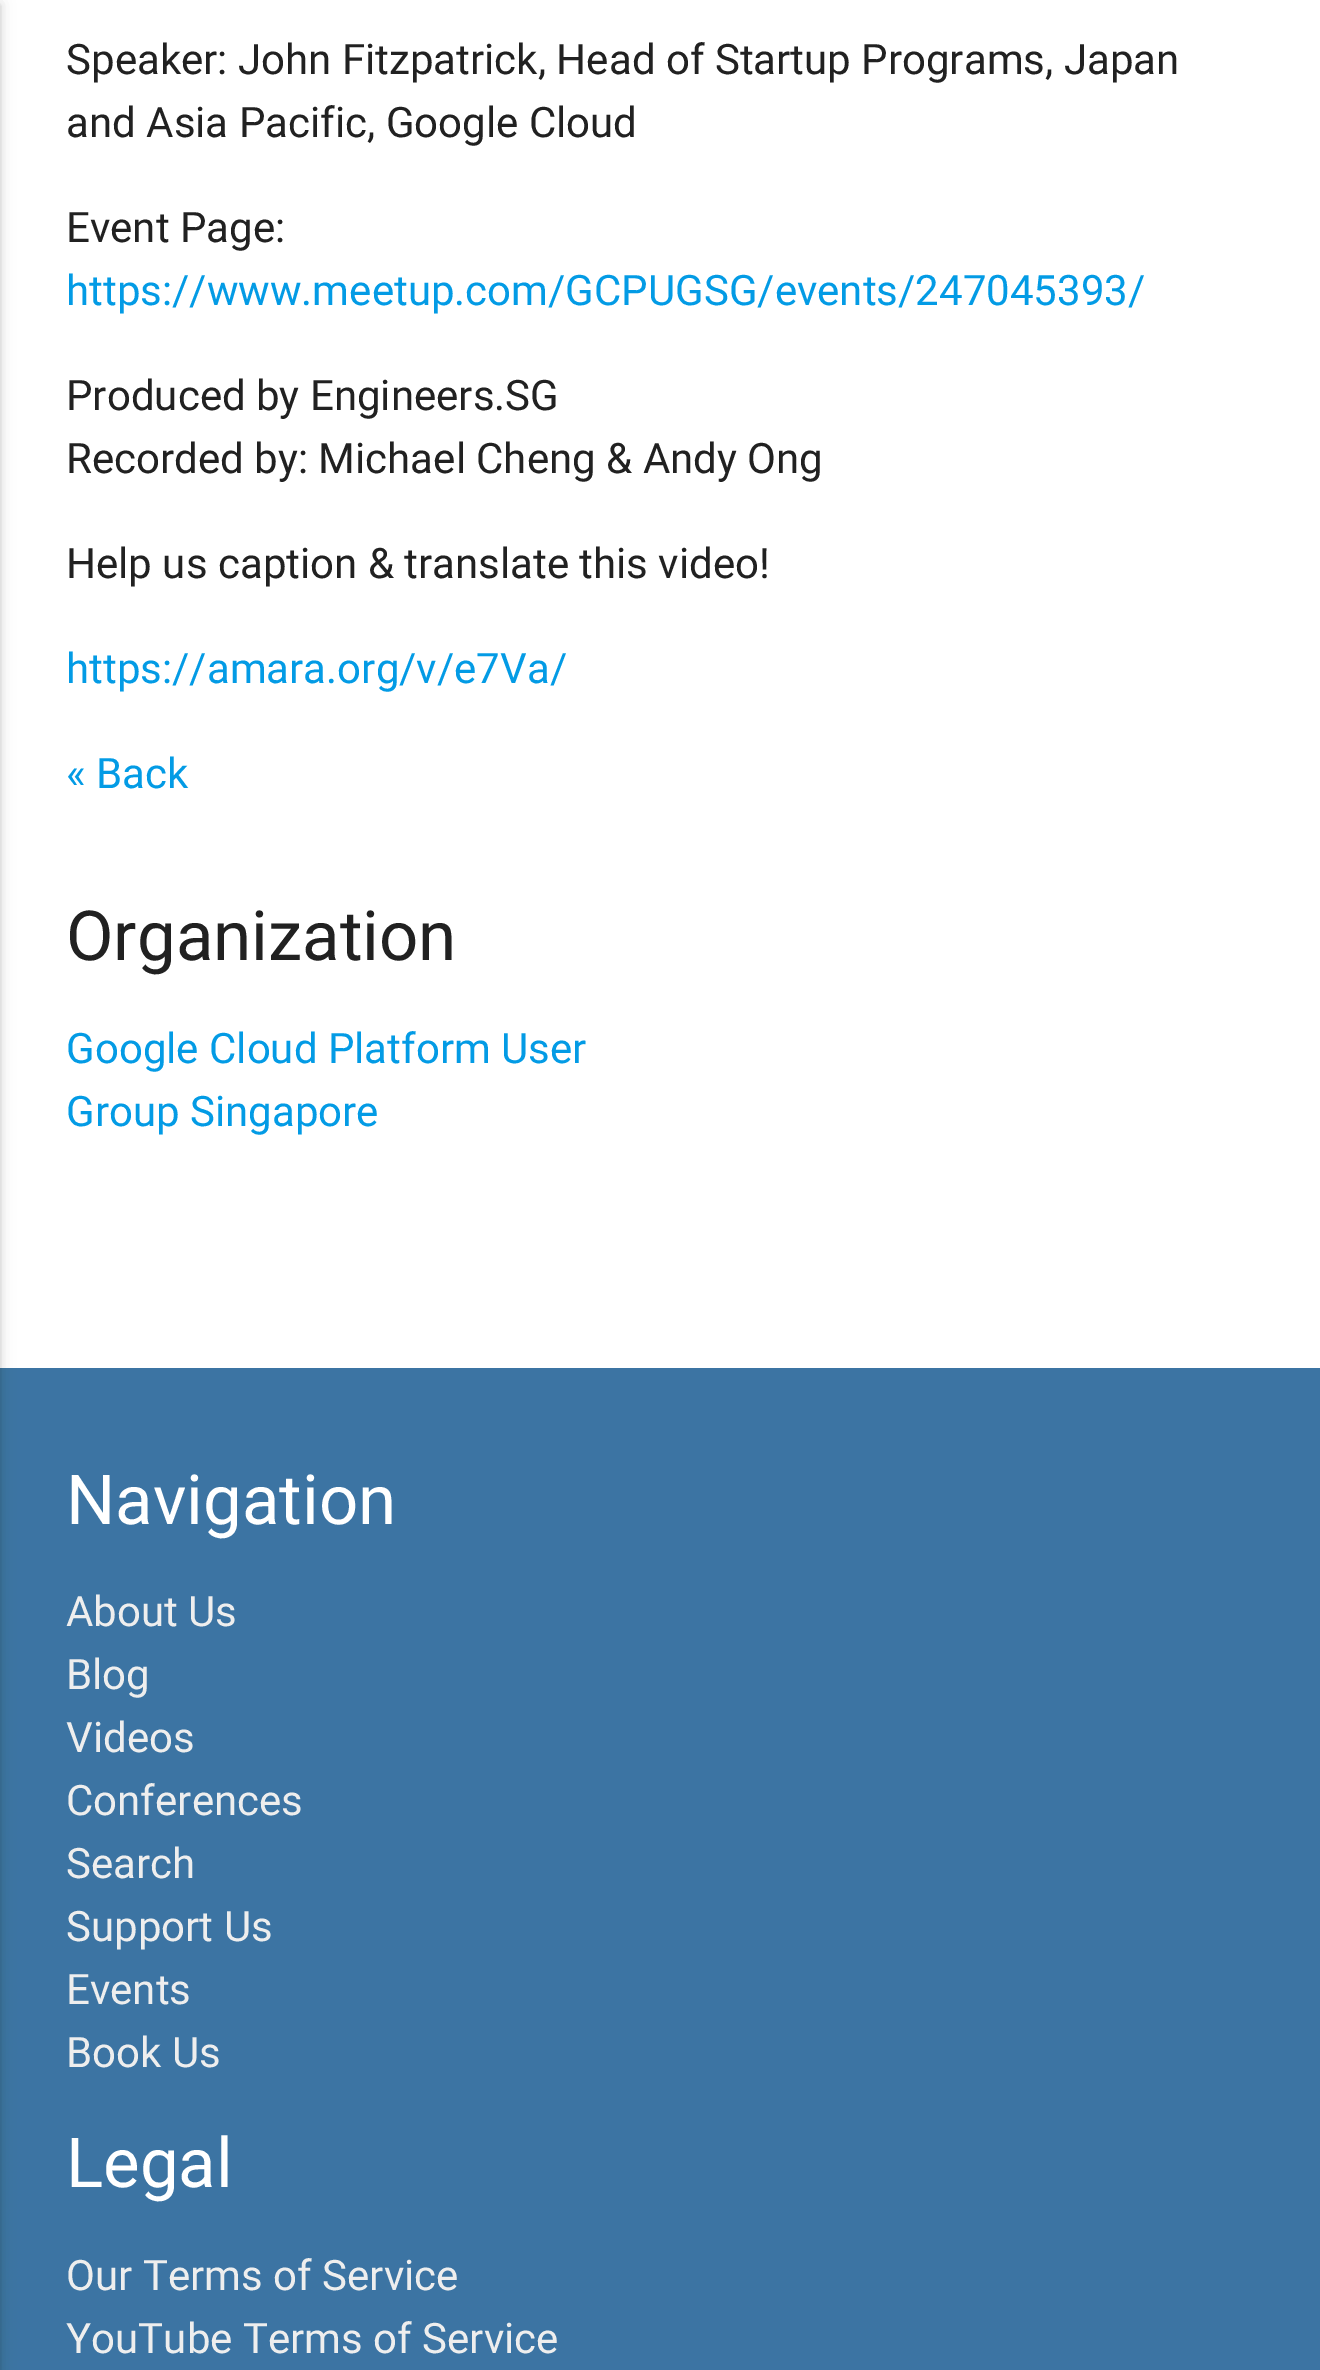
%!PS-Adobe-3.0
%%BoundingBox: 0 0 1320 2370
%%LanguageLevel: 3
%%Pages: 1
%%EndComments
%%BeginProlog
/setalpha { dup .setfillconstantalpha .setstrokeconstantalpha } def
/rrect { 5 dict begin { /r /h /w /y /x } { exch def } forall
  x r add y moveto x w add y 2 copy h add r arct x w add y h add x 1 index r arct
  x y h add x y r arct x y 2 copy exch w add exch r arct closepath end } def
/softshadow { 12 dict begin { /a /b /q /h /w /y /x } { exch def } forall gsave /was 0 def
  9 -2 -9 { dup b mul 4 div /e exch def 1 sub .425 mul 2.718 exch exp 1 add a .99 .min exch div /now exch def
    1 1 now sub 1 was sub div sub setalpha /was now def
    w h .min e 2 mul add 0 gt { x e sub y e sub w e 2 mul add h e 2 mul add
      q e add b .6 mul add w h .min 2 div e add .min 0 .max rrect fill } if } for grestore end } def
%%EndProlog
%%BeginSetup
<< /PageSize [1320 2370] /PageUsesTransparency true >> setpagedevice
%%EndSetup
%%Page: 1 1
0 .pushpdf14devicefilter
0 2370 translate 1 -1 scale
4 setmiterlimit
1 setgray
0 0 1320 2370 rectfill
0.235 0.455 0.639 setrgbcolor
0 1368 1320 1002 rectfill
0 setgray
-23 3 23 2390 0 7.5 0.12 softshadow
-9 6 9 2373 0 3 0.14 softshadow
/Roboto-Regular [42 0 0 -42 0 0] selectfont
0.129 setgray
66 74 moveto (Speaker: John Fitzpatrick, Head of Startup Programs, Japan) show
66 137 moveto (and Asia Pacific, Google Cloud) show
66 242 moveto (Event Page:) show
0.012 0.608 0.898 setrgbcolor
66 305 moveto (https://www.meetup.com/GCPUGSG/events/247045393/) show
0.129 setgray
66 410 moveto (Produced by Engineers.SG) show
66 473 moveto (Recorded by: Michael Cheng & Andy Ong) show
66 578 moveto (Help us caption & translate this video!) show
0.012 0.608 0.898 setrgbcolor
66 683 moveto (https://amara.org/v/e7Va/) show
66 788 moveto (« Back) show
/Roboto-Regular [69 0 0 -69 0 0] selectfont
0.129 setgray
66 960 moveto (Organization) show
/Roboto-Regular [42 0 0 -42 0 0] selectfont
0.012 0.608 0.898 setrgbcolor
66 1063 moveto (Google Cloud Platform User) show
66 1126 moveto (Group Singapore) show
/Roboto-Regular [69 0 0 -69 0 0] selectfont
1 setgray
66 1524 moveto (Navigation) show
/Roboto-Regular [42 0 0 -42 0 0] selectfont
0.933 setgray
66 1626 moveto (About Us) show
66 1689 moveto (Blog) show
66 1752 moveto (Videos) show
66 1815 moveto (Conferences) show
66 1878 moveto (Search) show
66 1941 moveto (Support Us) show
66 2004 moveto (Events) show
66 2067 moveto (Book Us) show
/Roboto-Regular [69 0 0 -69 0 0] selectfont
1 setgray
66 2187 moveto (Legal) show
/Roboto-Regular [42 0 0 -42 0 0] selectfont
0.933 setgray
66 2290 moveto (Our Terms of Service) show
66 2353 moveto (YouTube Terms of Service) show
.poppdf14devicefilter showpage
%%EOF
